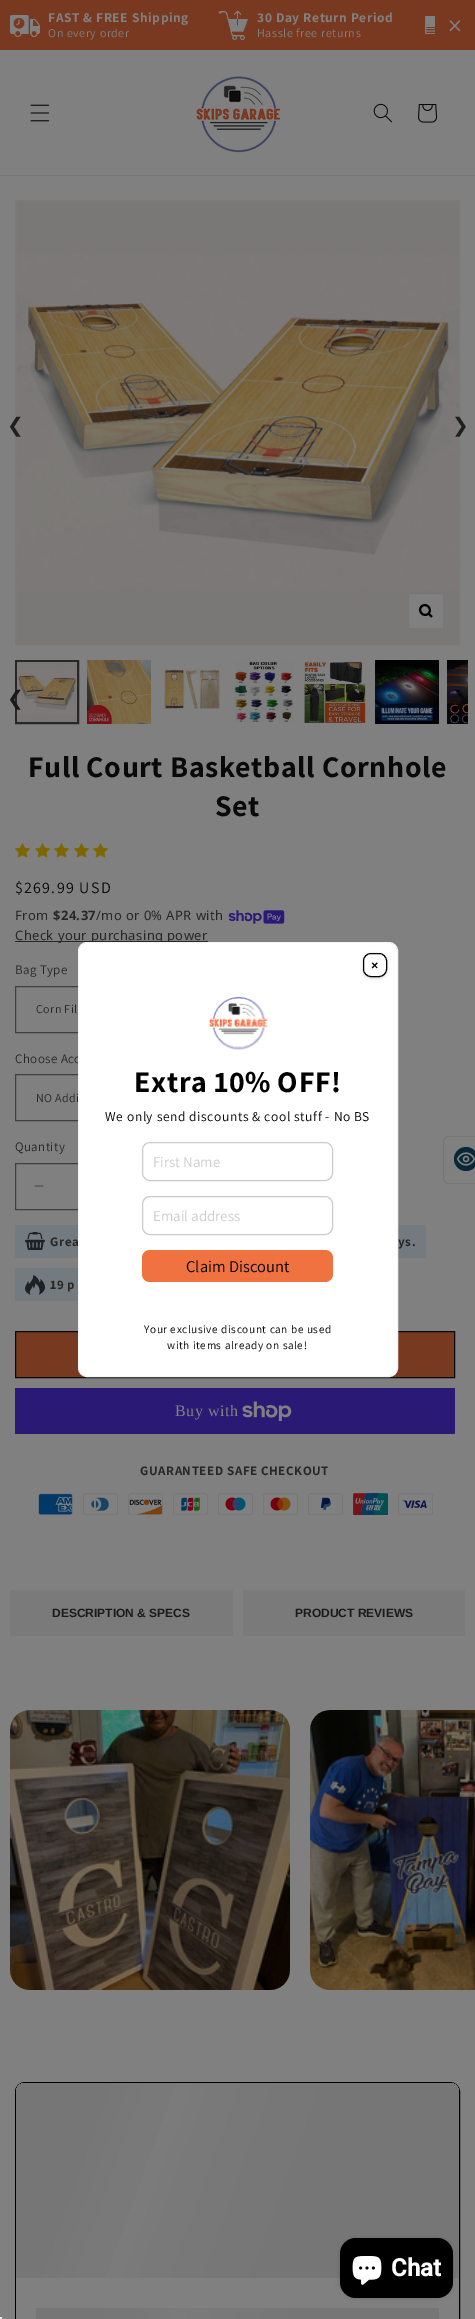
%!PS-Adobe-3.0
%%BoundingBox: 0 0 475 2319
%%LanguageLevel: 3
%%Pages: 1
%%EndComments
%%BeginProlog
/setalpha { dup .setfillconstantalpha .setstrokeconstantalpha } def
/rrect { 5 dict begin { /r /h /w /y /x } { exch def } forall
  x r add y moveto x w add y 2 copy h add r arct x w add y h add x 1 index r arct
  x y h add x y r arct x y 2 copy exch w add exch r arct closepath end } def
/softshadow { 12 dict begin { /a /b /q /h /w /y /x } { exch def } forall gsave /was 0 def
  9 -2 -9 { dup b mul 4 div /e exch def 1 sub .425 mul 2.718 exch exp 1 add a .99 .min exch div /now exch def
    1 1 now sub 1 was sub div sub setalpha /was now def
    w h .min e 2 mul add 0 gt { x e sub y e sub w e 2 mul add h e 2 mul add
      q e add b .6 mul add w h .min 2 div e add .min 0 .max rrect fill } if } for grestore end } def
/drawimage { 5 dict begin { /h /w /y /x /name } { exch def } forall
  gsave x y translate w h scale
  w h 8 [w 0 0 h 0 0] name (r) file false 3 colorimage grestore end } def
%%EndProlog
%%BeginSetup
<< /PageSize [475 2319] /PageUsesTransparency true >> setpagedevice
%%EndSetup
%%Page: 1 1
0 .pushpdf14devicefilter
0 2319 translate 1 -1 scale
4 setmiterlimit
0.502 setgray
0 0 475 2319 rectfill
0.471 0.224 0.125 setrgbcolor
0 0 475 50 rectfill
(images/1.raw) 10 15 30 22 drawimage
(images/2.raw) 219 10 29 30 drawimage
(images/3.raw) 425 16 10 18 drawimage
0.463 setgray
0 175 475 1 rectfill
(images/4.raw) 30 104 20 18 drawimage
(images/5.raw) 196 76 84 77 drawimage
(images/6.raw) 373 103 19 20 drawimage
(images/7.raw) 418 104 20 19 drawimage
0.478 setgray
15.5 200.5 444 444 rectstroke
(images/8.raw) 16 201 443 443 drawimage
0.502 setgray
newpath 408.5 593.5 moveto 443.5 593.5 lineto 443.5 628.5 lineto 408.5 628.5 lineto closepath gsave fill grestore
0.467 setgray
stroke
0 setgray
2 setlinewidth
newpath 428.5 613.5 moveto 433 609 426 602 421.5 606.5 curveto 417 611 424 618 428.5 613.5 curveto closepath 428.5 613.5 moveto 432 617 lineto stroke
0.153 setgray
16 661 62 62 rectstroke
(images/9.raw) 17 662 60 60 drawimage
(images/10.raw) 87 660 64 64 drawimage
(images/11.raw) 164 669 56 40 drawimage
(images/12.raw) 234 661 60 61 drawimage
(images/13.raw) 303 661 63 63 drawimage
(images/14.raw) 375 660 64 64 drawimage
(images/15.raw) 447 660 21 64 drawimage
(images/16.raw) 15 843 15 15 drawimage
(images/16.raw) 35 843 15 15 drawimage
(images/16.raw) 54 843 15 15 drawimage
(images/16.raw) 74 843 15 15 drawimage
(images/16.raw) 93 843 15 15 drawimage
(images/17.raw) 228 910 57 14 drawimage
15 941 193 1 rectfill
0.247 setgray
1 setlinewidth
15.5 986.5 249 46 rectstroke
15.5 1074.5 249 46 rectstroke
(images/18.raw) 34 1185 10 2 drawimage
15.5 1163.5 141 46 rectstroke
0.455 0.482 0.502 setrgbcolor
15 1225 411 33 rectfill
(images/19.raw) 25 1232 20 18 drawimage
15 1268 63 33 rectfill
(images/20.raw) 25 1275 20 20 drawimage
0.471 0.224 0.129 setrgbcolor
newpath 15.5 1331.5 moveto 454.5 1331.5 lineto 454.5 1377.5 lineto 15.5 1377.5 lineto closepath gsave fill grestore
0.035 setgray
stroke
0.165 0.102 0.463 setrgbcolor
15 1388 440 46 rectfill
(images/21.raw) 242 1401 50 20 drawimage
(images/22.raw) 38 1493 35 22 drawimage
(images/23.raw) 83 1493 35 22 drawimage
(images/24.raw) 128 1493 35 22 drawimage
(images/25.raw) 173 1493 35 22 drawimage
(images/26.raw) 218 1493 35 22 drawimage
(images/27.raw) 263 1493 35 22 drawimage
(images/28.raw) 308 1493 35 22 drawimage
(images/29.raw) 353 1493 35 22 drawimage
(images/30.raw) 398 1493 35 22 drawimage
0.478 setgray
10 1590 223 46 rectfill
243 1590 222 46 rectfill
(images/31.raw) 10 1710 280 280 drawimage
(images/32.raw) 310 1710 165 280 drawimage
0 setgray
15.5 2082.5 444 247 9.5 rrect stroke
0.502 setgray
16 2083 443 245 9 rrect fill
gsave newpath 25 2083 moveto 450 2083 lineto 455 2083 459 2087 459 2092 curveto 459 2278 lineto 16 2278 lineto 16 2092 lineto 16 2087 20 2083 25 2083 curveto closepath clip newpath
<< /ShadingType 2 /ColorSpace /DeviceRGB /Coords [36 2027 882 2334] /Extend [true true] /Function << /FunctionType 3 /Domain [0 1] /Functions [<< /FunctionType 2 /Domain [0 1] /C0 [0.463 0.463 0.463] /C1 [0.463 0.463 0.463] /N 1 >> << /FunctionType 2 /Domain [0 1] /C0 [0.463 0.463 0.463] /C1 [0.482 0.482 0.482] /N 1 >> << /FunctionType 2 /Domain [0 1] /C0 [0.482 0.482 0.482] /C1 [0.463 0.463 0.463] /N 1 >> << /FunctionType 2 /Domain [0 1] /C0 [0.463 0.463 0.463] /C1 [0.463 0.463 0.463] /N 1 >>] /Bounds [0.08 0.18 0.33] /Encode [0 1 0 1 0 1 0 1] >> >> shfill grestore
gsave newpath 36 2308 moveto 439 2308 lineto 439 2319 lineto 36 2319 lineto closepath clip newpath
<< /ShadingType 2 /ColorSpace /DeviceRGB /Coords [76 2198 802 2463] /Extend [true true] /Function << /FunctionType 3 /Domain [0 1] /Functions [<< /FunctionType 2 /Domain [0 1] /C0 [0.463 0.463 0.463] /C1 [0.463 0.463 0.463] /N 1 >> << /FunctionType 2 /Domain [0 1] /C0 [0.463 0.463 0.463] /C1 [0.482 0.482 0.482] /N 1 >> << /FunctionType 2 /Domain [0 1] /C0 [0.482 0.482 0.482] /C1 [0.463 0.463 0.463] /N 1 >> << /FunctionType 2 /Domain [0 1] /C0 [0.463 0.463 0.463] /C1 [0.463 0.463 0.463] /N 1 >>] /Bounds [0.08 0.18 0.33] /Encode [0 1 0 1 0 1 0 1] >> >> shfill grestore
0.451 0.455 0.463 setrgbcolor
newpath 449 1136 moveto 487 1136 lineto 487 1184 lineto 449 1184 lineto 446 1184 443 1181 443 1178 curveto 443 1142 lineto 443 1139 446 1136 449 1136 curveto closepath 449 1137 moveto 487 1137 lineto 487 1183 lineto 449 1183 lineto 446 1183 444 1181 444 1178 curveto 444 1142 lineto 444 1139 446 1137 449 1137 curveto closepath eofill
0.043 0.153 0.216 setrgbcolor
newpath 466 1159 12 0 360 arc closepath fill
(images/34.raw) 456 1152 19 14 drawimage
0 setgray
340 2238 113 60 16 2.5 0.15 softshadow
340 2238 113 60 16 rrect fill
(images/35.raw) 352 2256 30 29 drawimage
0.961 setgray
0 2317 2 2 rectfill
/Assistant-Bold [13.5 0 0 -13.5 0 0] selectfont
0.502 setgray
48 22 moveto 0.6 0 (FAST & FREE Shipping) ashow
/Assistant-ExtraLight [12 0 0 -12 0 0] selectfont
48 37 moveto 0.6 0 (On every order) ashow
/Assistant-Bold [13.5 0 0 -13.5 0 0] selectfont
257 22 moveto 0.6 0 (30 Day Return Period) ashow
/Assistant-ExtraLight [12 0 0 -12 0 0] selectfont
257 37 moveto 0.6 0 (Hassle free returns) ashow
/Assistant-ExtraLight [28 0 0 -28 0 0] selectfont
448 35 moveto 0.6 0 (×) ashow
/DejaVuSans-Regular [20 0 0 -20 0 0] selectfont
0.125 0.122 0.122 setrgbcolor
7 432 moveto (❮) show
452 432 moveto (❯) show
0.102 setgray
7 705 moveto (❮) show
0.035 setgray
452 705 moveto (❯) show
/Assistant-Bold [30 0 0 -30 0 0] selectfont
28 777 moveto 0.6 0 (Full Court Basketball Cornhole) ashow
215 816 moveto 0.6 0 (Set) ashow
/Assistant-ExtraLight [16 0 0 -16 0 0] selectfont
15 893 moveto 1.25 0 ($269.99 USD) ashow
/NotoSans-Regular [13 0 0 -13 0 0] selectfont
0.153 setgray
15 920 moveto 0.4 0 (From) ashow
/NotoSans-Bold [13 0 0 -13 0 0] selectfont
53 920 moveto 0.4 0 ($24.37) ashow
/NotoSans-Regular [13 0 0 -13 0 0] selectfont
96 920 moveto 0.4 0 (/mo or 0% APR with) ashow
15 940 moveto 0.4 0 (Check your purchasing power) ashow
/Assistant-ExtraLight [13 0 0 -13 0 0] selectfont
15 974 moveto 0.4 0 (Bag Type) ashow
/Assistant-ExtraLight [12 0 0 -12 0 0] selectfont
36 1013 moveto 0.4 0 (Corn Fil) ashow
/Assistant-ExtraLight [13 0 0 -13 0 0] selectfont
15 1063 moveto 0.4 0 (Choose Acc) ashow
/Assistant-ExtraLight [12 0 0 -12 0 0] selectfont
36 1102 moveto 0.4 0 (NO Addi) ashow
/Assistant-ExtraLight [13 0 0 -13 0 0] selectfont
15 1151 moveto 0.4 0 (Quantity) ashow
/Assistant-Bold [13 0 0 -13 0 0] selectfont
50 1246 moveto 0.6 0 (Grea) ashow
398 1246 moveto 0.6 0 (ys.) ashow
50 1289 moveto 0.6 0 (19 p) ashow
/LiberationSerif-Regular [16 0 0 -16 0 0] selectfont
0.502 setgray
175 1416 moveto 0.6 0 (Buy with) ashow
/Assistant-Bold [13 0 0 -13 0 0] selectfont
0.153 setgray
140 1475 moveto 0.6 0 (GUARANTEED SAFE CHECKOUT) ashow
/LiberationSans-Bold [12 0 0 -12 0 0] selectfont
0.102 setgray
52 1617 moveto (DESCRIPTION & SPECS) show
295 1617 moveto (PRODUCT REVIEWS) show
0.953 0.957 0.965 setrgbcolor
78.5 942.5 319 434 8.5 rrect stroke
1 setgray
79 943 318 433 8 rrect fill
0 setgray
363 954 24 24 8 1.5 0.2 softshadow
1 setgray
363.5 953.5 23 23 7.5 rrect gsave fill grestore
0 setgray
stroke
/Assistant-Bold [14 0 0 -14 0 0] selectfont
371 970 moveto (×) show
(images/33.raw) 209 997 59 53 drawimage
/Assistant-Bold [30 0 0 -30 0 0] selectfont
134 1092 moveto 0.6 0 (Extra 10% OFF!) ashow
/Assistant-ExtraLight [13.5 0 0 -13.5 0 0] selectfont
105 1121 moveto 0.6 0 (We only send discounts & cool stuff - No BS) ashow
0.8 setgray
142.5 1142.5 190 38 7.5 rrect stroke
/Assistant-ExtraLight [15 0 0 -15 0 0] selectfont
153 1167 moveto (First Name) show
142.5 1196.5 190 38 7.5 rrect stroke
153 1221 moveto (Email address) show
0.941 0.447 0.255 setrgbcolor
142 1250 191 32 8 rrect fill
/Assistant-ExtraLight [16.5 0 0 -16.5 0 0] selectfont
0 setgray
186 1272 moveto (Claim Discount) show
/Assistant-ExtraLight [11.25 0 0 -11.25 0 0] selectfont
144 1333 moveto 0.6 0 (Your exclusive discount can be used) ashow
167 1349 moveto 0.6 0 (with items already on sale!) ashow
/Roboto-Bold [24 0 0 -24 0 0] selectfont
1 setgray
391 2276 moveto (Chat) show
.poppdf14devicefilter showpage
%%EOF
